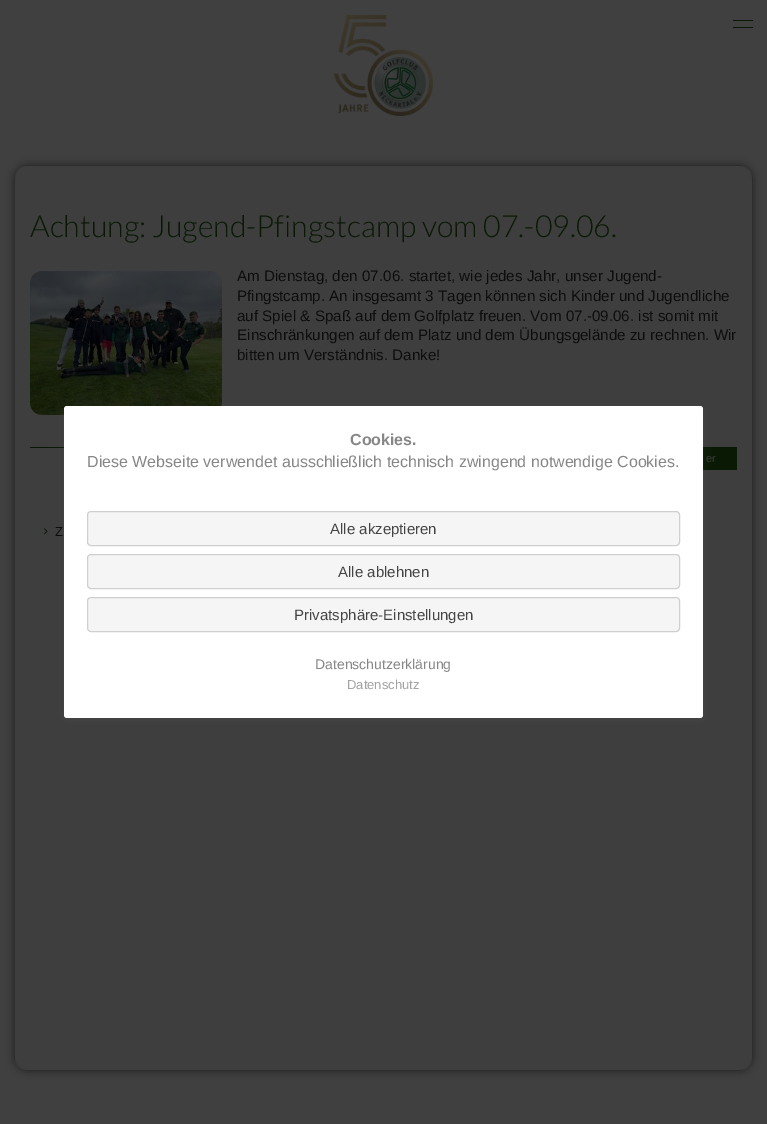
%!PS-Adobe-3.0
%%BoundingBox: 0 0 767 1124
%%LanguageLevel: 3
%%Pages: 1
%%EndComments
%%BeginProlog
/setalpha { dup .setfillconstantalpha .setstrokeconstantalpha } def
/rrect { 5 dict begin { /r /h /w /y /x } { exch def } forall
  x r add y moveto x w add y 2 copy h add r arct x w add y h add x 1 index r arct
  x y h add x y r arct x y 2 copy exch w add exch r arct closepath end } def
/softshadow { 12 dict begin { /a /b /q /h /w /y /x } { exch def } forall gsave /was 0 def
  9 -2 -9 { dup b mul 4 div /e exch def 1 sub .425 mul 2.718 exch exp 1 add a .99 .min exch div /now exch def
    1 1 now sub 1 was sub div sub setalpha /was now def
    w h .min e 2 mul add 0 gt { x e sub y e sub w e 2 mul add h e 2 mul add
      q e add b .6 mul add w h .min 2 div e add .min 0 .max rrect fill } if } for grestore end } def
/drawimage { 5 dict begin { /h /w /y /x /name } { exch def } forall
  gsave x y translate w h scale
  w h 8 [w 0 0 h 0 0] name (r) file false 3 colorimage grestore end } def
%%EndProlog
%%BeginSetup
<< /PageSize [767 1124] /PageUsesTransparency true >> setpagedevice
%%EndSetup
%%Page: 1 1
0 .pushpdf14devicefilter
0 1124 translate 1 -1 scale
4 setmiterlimit
0.251 setgray
0 0 767 1124 rectfill
(images/1.raw) 334 15 99 101 drawimage
0.035 0.098 0.016 setrgbcolor
733 20 20 1 rectfill
733 27 20 1 rectfill
gsave
newpath 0 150 moveto 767 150 lineto 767 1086 lineto 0 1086 lineto closepath 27 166 moveto 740 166 lineto 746.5 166 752 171.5 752 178 curveto 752 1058 lineto 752 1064.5 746.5 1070 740 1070 curveto 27 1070 lineto 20.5 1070 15 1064.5 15 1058 curveto 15 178 lineto 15 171.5 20.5 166 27 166 curveto closepath eoclip newpath
0 setgray
15 166 737 904 12 5 0.6 softshadow
grestore
0.85 setalpha
0.243 setgray
15 166 737 904 12 rrect fill
1 setalpha
(images/2.raw) 30 271 192 144 drawimage
0.035 0.098 0.016 setrgbcolor
30 447 707 1 rectfill
703 448 34 22 rectfill
(images/3.raw) 44 528 4 7 drawimage
0.388 setgray
64 408 639 312 3 4 0.2 softshadow
1 setgray
64 406 639 312 3 rrect fill
0.961 setgray
87.5 511.5 592 34 3.5 rrect gsave fill grestore
0.812 setgray
stroke
0.961 setgray
87.5 554.5 592 34 3.5 rrect gsave fill grestore
0.812 setgray
stroke
0.961 setgray
87.5 597.5 592 34 3.5 rrect gsave fill grestore
0.812 setgray
stroke
/Lato-Light [30.4 0 0 -30.4 0 0] selectfont
0.035 0.098 0.016 setrgbcolor
30 237 moveto (Achtung: Jugend-Pfingstcamp vom 07.-09.06.) show
/LiberationSans-Regular [15.2 0 0 -15.2 0 0] selectfont
0.051 setgray
237 281 moveto (Am Dienstag, den 07.06. startet, wie jedes Jahr, unser Jugend-) show
237 301 moveto (Pfingstcamp. An insgesamt 3 Tagen können sich Kinder und Jugendliche) show
237 321 moveto (auf Spiel & Spaß auf dem Golfplatz freuen. Vom 07.-09.06. ist somit mit) show
237 340 moveto (Einschränkungen auf dem Platz und dem Übungsgelände zu rechnen. Wir) show
237 360 moveto (bitten um Verständnis. Danke!) show
/LiberationSans-Regular [11 0 0 -11 0 0] selectfont
0.243 setgray
706 462 moveto (er) show
/LiberationSans-Regular [13 0 0 -13 0 0] selectfont
0.051 setgray
55 536 moveto (Z) show
/LiberationSans-Bold [16 0 0 -16 0 0] selectfont
0.525 setgray
350 445 moveto (Cookies.) show
/LiberationSans-Regular [16 0 0 -16 0 0] selectfont
87 467 moveto (Diese Webseite verwendet ausschließlich technisch zwingend notwendige Cookies.) show
/LiberationSans-Regular [15 0 0 -15 0 0] selectfont
0.267 setgray
330 534 moveto (Alle akzeptieren) show
338 577 moveto (Alle ablehnen) show
294 620 moveto (Privatsphäre-Einstellungen) show
/LiberationSans-Regular [14 0 0 -14 0 0] selectfont
0.525 setgray
315 669 moveto (Datenschutzerklärung) show
/LiberationSans-Regular [13 0 0 -13 0 0] selectfont
0.635 setgray
347 689 moveto (Datenschutz) show
.poppdf14devicefilter showpage
%%EOF
